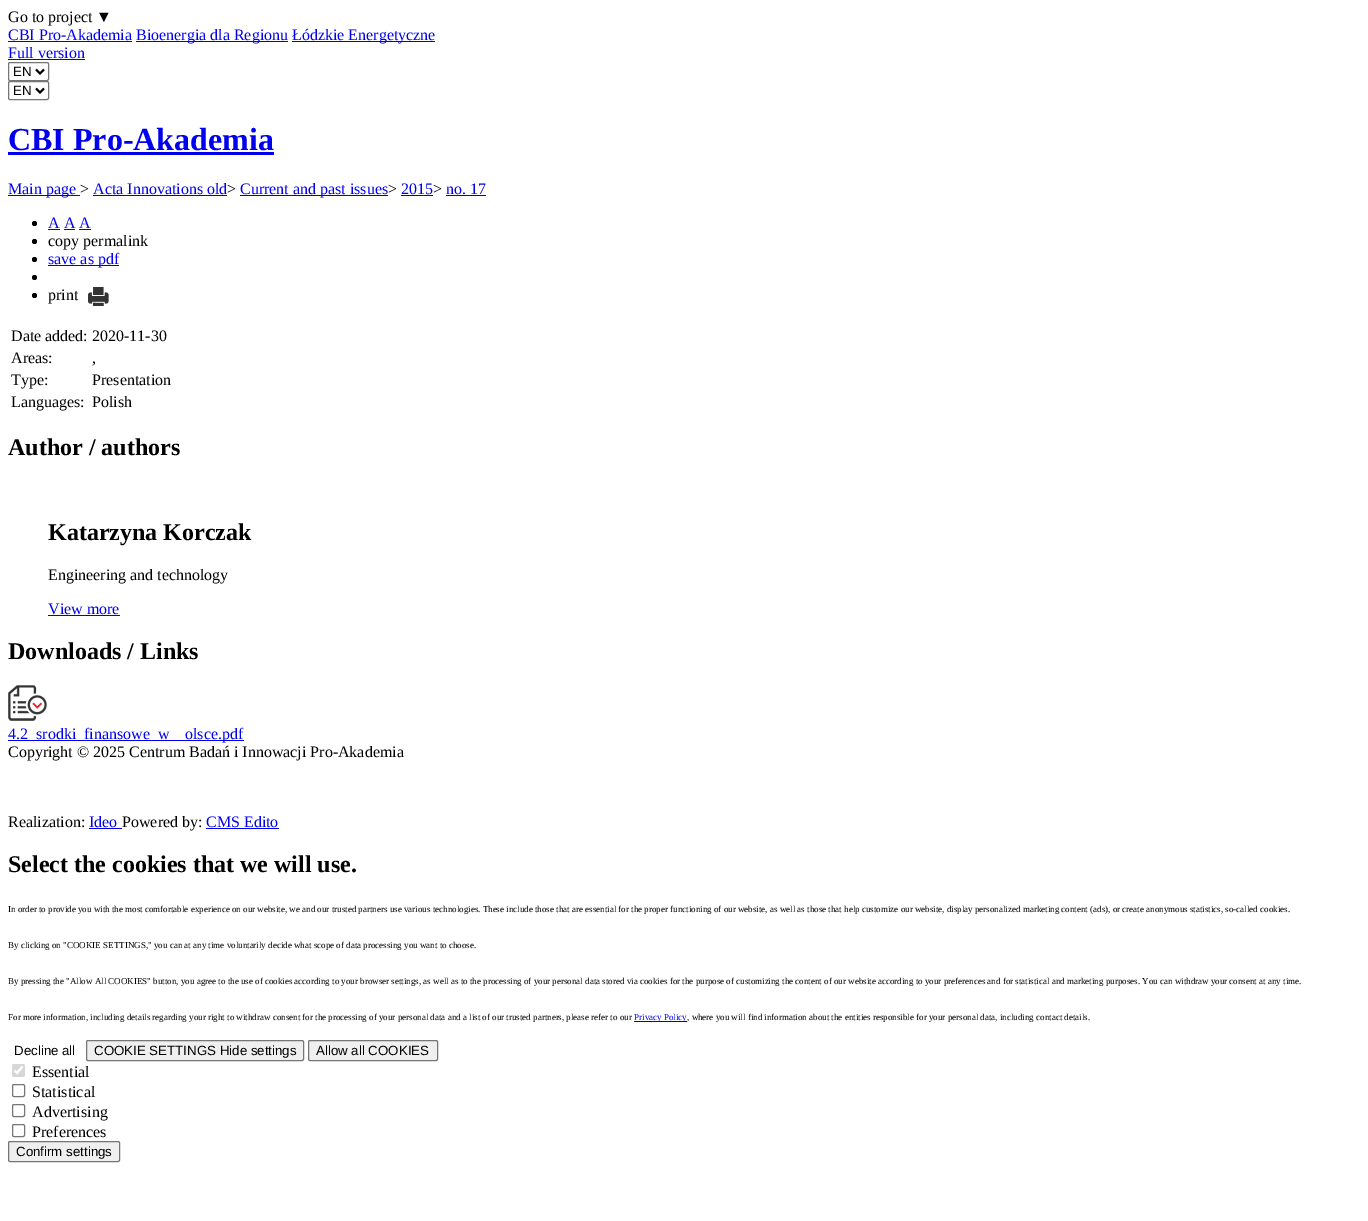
%!PS-Adobe-3.0
%%BoundingBox: 0 0 1368 1221
%%LanguageLevel: 3
%%Pages: 1
%%EndComments
%%BeginProlog
/rrect { 5 dict begin { /r /h /w /y /x } { exch def } forall
  x r add y moveto x w add y 2 copy h add r arct x w add y h add x 1 index r arct
  x y h add x y r arct x y 2 copy exch w add exch r arct closepath end } def
/drawimage { 5 dict begin { /h /w /y /x /name } { exch def } forall
  gsave x y translate w h scale
  w h 8 [w 0 0 h 0 0] name (r) file false 3 colorimage grestore end } def
%%EndProlog
%%BeginSetup
<< /PageSize [1368 1221] >> setpagedevice
%%EndSetup
%%Page: 1 1
0 1221 translate 1 -1 scale
4 setmiterlimit
1 setgray
0 0 1368 1221 rectfill
0 0 0.933 setrgbcolor
8 41 124 1 rectfill
136 41 152 1 rectfill
292 41 143 1 rectfill
8 59 77 1 rectfill
0.463 setgray
8.5 62.5 40 18 1.5 rrect stroke
0 setgray
2 setlinewidth
newpath 36 69.5 moveto 40 73.5 lineto 44 69.5 lineto stroke
0.463 setgray
1 setlinewidth
8.5 81.5 40 18 1.5 rrect stroke
0 setgray
2 setlinewidth
newpath 36 88.5 moveto 40 92.5 lineto 44 88.5 lineto stroke
0 0 0.933 setrgbcolor
8 152 266 3 rectfill
8 195 72 1 rectfill
93 195 134 1 rectfill
240 195 148 1 rectfill
401 195 32 1 rectfill
446 195 40 1 rectfill
0 setgray
newpath 34.5 223.5 2.5 0 360 arc closepath fill
0 0 0.933 setrgbcolor
48 229 12 1 rectfill
64 229 11 1 rectfill
79 229 12 1 rectfill
0 setgray
newpath 34.5 241.5 2.5 0 360 arc closepath fill
newpath 34.5 259.5 2.5 0 360 arc closepath fill
0 0 0.933 setrgbcolor
48 265 71 1 rectfill
0 setgray
newpath 34.5 277.5 2.5 0 360 arc closepath fill
newpath 34.5 295.5 2.5 0 360 arc closepath fill
(images/1.raw) 88 287 21 19 drawimage
0 0 0.933 setrgbcolor
48 615 72 1 rectfill
(images/2.raw) 8 685 39 36 drawimage
8 740 236 1 rectfill
89 828 33 1 rectfill
206 828 73 1 rectfill
634 1021 53 1 rectfill
0.937 setgray
86.5 1040.5 217 20 1.5 rrect gsave fill grestore
0.463 setgray
1 setlinewidth
stroke
0.937 setgray
308.5 1040.5 129 20 1.5 rrect gsave fill grestore
0.463 setgray
stroke
0.839 setgray
12 1064 13 13 2 rrect fill
1 setgray
2.1 setlinewidth
newpath 14.5 1070.5 moveto 17 1073 lineto 22.5 1066.5 lineto stroke
0.463 setgray
1 setlinewidth
12.5 1084.5 12 12 1.5 rrect stroke
12.5 1104.5 12 12 1.5 rrect stroke
12.5 1124.5 12 12 1.5 rrect stroke
0.937 setgray
8.5 1141.5 111 20 1.5 rrect gsave fill grestore
0.463 setgray
stroke
/LiberationSerif-Regular [16 0 0 -16 0 0] selectfont
0 setgray
8 22 moveto (Go to project ▼) show
0 0 0.933 setrgbcolor
8 40 moveto (CBI Pro-Akademia) show
136 40 moveto (Bioenergia dla Regionu) show
292 40 moveto (Łódzkie Energetyczne) show
8 58 moveto (Full version) show
/LiberationSans-Regular [13.3 0 0 -13.3 0 0] selectfont
0 setgray
13 76 moveto (EN) show
13 95 moveto (EN) show
/LiberationSerif-Bold [32 0 0 -32 0 0] selectfont
0 0 0.933 setrgbcolor
8 150 moveto (CBI Pro-Akademia) show
/LiberationSerif-Regular [16 0 0 -16 0 0] selectfont
8 194 moveto (Main page) show
0 setgray
80 194 moveto (>) show
0 0 0.933 setrgbcolor
93 194 moveto (Acta Innovations old) show
0 setgray
227 194 moveto (>) show
0 0 0.933 setrgbcolor
240 194 moveto (Current and past issues) show
0 setgray
388 194 moveto (>) show
0 0 0.933 setrgbcolor
401 194 moveto (2015) show
0 setgray
433 194 moveto (>) show
0 0 0.933 setrgbcolor
446 194 moveto (no. 17) show
48 228 moveto (A A A) show
0 setgray
48 246 moveto (copy permalink) show
0 0 0.933 setrgbcolor
48 264 moveto (save as pdf) show
0 setgray
48 300 moveto (print) show
11 341 moveto (Date added: 2020-11-30) show
11 363 moveto (Areas:) show
92 363 moveto (,) show
11 385 moveto (Type:) show
92 385 moveto (Presentation) show
11 407 moveto (Languages:) show
92 407 moveto (Polish) show
/LiberationSerif-Bold [24 0 0 -24 0 0] selectfont
8 455 moveto (Author / authors) show
48 540 moveto (Katarzyna Korczak) show
/LiberationSerif-Regular [16 0 0 -16 0 0] selectfont
48 580 moveto (Engineering and technology) show
0 0 0.933 setrgbcolor
48 614 moveto (View more) show
/LiberationSerif-Bold [24 0 0 -24 0 0] selectfont
0 setgray
8 659 moveto (Downloads / Links) show
/LiberationSerif-Regular [16 0 0 -16 0 0] selectfont
0 0 0.933 setrgbcolor
8 739 moveto (4.2_srodki_finansowe_w) show
185 739 moveto (olsce.pdf) show
0 setgray
8 757 moveto (Copyright © 2025 Centrum Badań i Innowacji Pro-Akademia) show
8 827 moveto (Realization:) show
0 0 0.933 setrgbcolor
89 827 moveto (Ideo) show
0 setgray
122 827 moveto (Powered by:) show
0 0 0.933 setrgbcolor
206 827 moveto (CMS Edito) show
/LiberationSerif-Bold [24 0 0 -24 0 0] selectfont
0 setgray
8 872 moveto (Select the cookies that we will use.) show
/LiberationSerif-Regular [9 0 0 -9 0 0] selectfont
8 912 moveto (In order to provide you with the most comfortable experience on our website, we and our trusted partners use various technologies. These include those that are essential for the proper functioning of our website, as well as those that help customize our website, display personalized marketing content \(ads\), or create anonymous statistics, so-called cookies.) show
8 948 moveto (By clicking on "COOKIE SETTINGS," you can at any time voluntarily decide what scope of data processing you want to choose.) show
8 984 moveto (By pressing the "Allow All COOKIES" button, you agree to the use of cookies according to your browser settings, as well as to the processing of your personal data stored via cookies for the purpose of customizing the content of our website according to your preferences and for statistical and marketing purposes. You can withdraw your consent at any time.) show
8 1020 moveto (For more information, including details regarding your right to withdraw consent for the processing of your personal data and a list of our trusted partners, please refer to our) show
0 0 0.933 setrgbcolor
634 1020 moveto (Privacy Policy) show
0 setgray
687 1020 moveto (, where you will find information about the entities responsible for your personal data, including contact details.) show
/LiberationSans-Regular [13.3 0 0 -13.3 0 0] selectfont
14 1055 moveto (Decline all) show
94 1055 moveto (COOKIE SETTINGS Hide settings) show
316 1055 moveto (Allow all COOKIES) show
/LiberationSerif-Regular [16 0 0 -16 0 0] selectfont
32 1077 moveto (Essential) show
32 1097 moveto (Statistical) show
32 1117 moveto (Advertising) show
32 1137 moveto (Preferences) show
/LiberationSans-Regular [13.3 0 0 -13.3 0 0] selectfont
16 1156 moveto (Confirm settings) show
showpage
%%EOF
